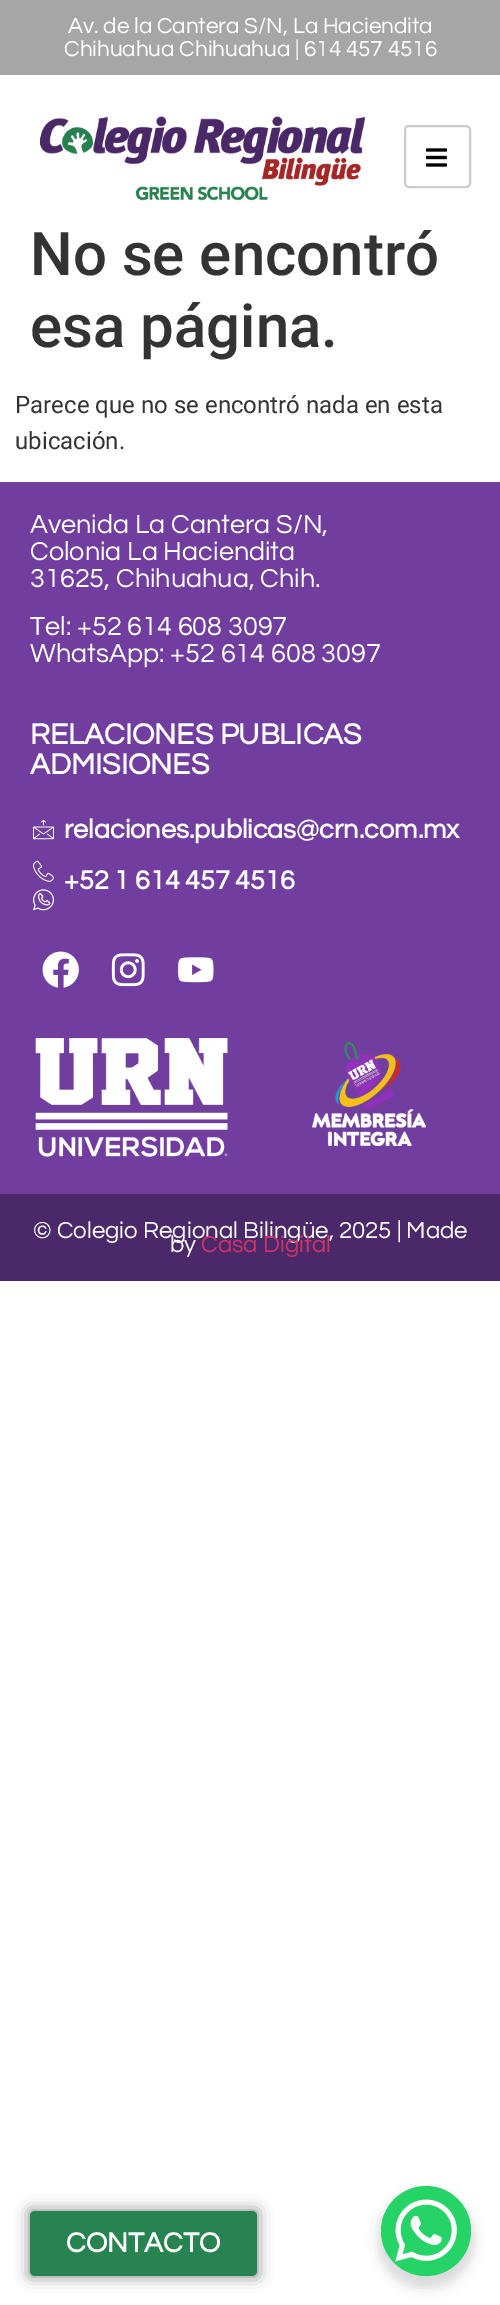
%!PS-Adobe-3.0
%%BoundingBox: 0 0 500 2305
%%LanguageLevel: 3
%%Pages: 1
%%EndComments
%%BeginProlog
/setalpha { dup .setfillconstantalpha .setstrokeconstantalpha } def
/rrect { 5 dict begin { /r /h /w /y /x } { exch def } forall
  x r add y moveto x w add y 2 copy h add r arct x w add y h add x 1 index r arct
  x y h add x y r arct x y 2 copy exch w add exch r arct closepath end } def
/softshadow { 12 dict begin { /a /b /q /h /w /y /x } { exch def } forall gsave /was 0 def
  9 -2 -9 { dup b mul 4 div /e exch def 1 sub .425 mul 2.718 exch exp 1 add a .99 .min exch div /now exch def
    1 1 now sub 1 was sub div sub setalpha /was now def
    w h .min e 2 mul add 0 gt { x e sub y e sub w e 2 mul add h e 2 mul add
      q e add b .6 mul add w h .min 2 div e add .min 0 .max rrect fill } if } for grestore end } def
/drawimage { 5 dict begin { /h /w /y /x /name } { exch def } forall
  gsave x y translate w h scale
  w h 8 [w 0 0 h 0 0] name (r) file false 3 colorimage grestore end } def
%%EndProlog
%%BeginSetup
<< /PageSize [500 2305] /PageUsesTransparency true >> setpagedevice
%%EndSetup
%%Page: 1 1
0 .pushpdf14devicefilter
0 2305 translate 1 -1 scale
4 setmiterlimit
1 setgray
0 0 500 2305 rectfill
0.651 setgray
0 0 500 75 rectfill
(images/1.raw) 39 116 326 85 drawimage
0.8 setgray
2 setlinewidth
405 126 65 61 4 rrect stroke
(images/2.raw) 426 148 21 19 drawimage
0 setgray
30 2211 227 65 0 7.5 0.5 softshadow
0.153 0.518 0.314 setrgbcolor
30 2211 227 65 5 rrect fill
0.443 0.239 0.62 setrgbcolor
0 482 500 712 rectfill
(images/3.raw) 33 819 21 21 drawimage
(images/4.raw) 33 860 21 22 drawimage
(images/5.raw) 33 889 21 22 drawimage
(images/6.raw) 42 951 37 37 drawimage
(images/7.raw) 111 953 34 34 drawimage
(images/8.raw) 178 957 36 26 drawimage
(images/9.raw) 35 1038 193 119 drawimage
(images/10.raw) 311 1042 115 104 drawimage
0.294 0.157 0.412 setrgbcolor
0 1194 500 87 rectfill
0 setgray
378 2192 96 96 48 6 0.15 softshadow
0.145 0.827 0.4 setrgbcolor
newpath 426 2231 45 0 360 arc closepath fill
(images/11.raw) 395 2199 62 63 drawimage
/Questrial-Regular [22.5 0 0 -22.5 0 0] selectfont
1 setgray
68 33 moveto (Av. de la Cantera S/N, La Haciendita) show
64 56 moveto (Chihuahua Chihuahua | 614 457 4516) show
/Questrial-Bold [28.5 0 0 -28.5 0 0] selectfont
66 2252 moveto (CONTACTO) show
/Roboto-Medium [60 0 0 -60 0 0] selectfont
0.2 setgray
30 275 moveto (No se encontró) show
30 347 moveto (esa página.) show
/Roboto-Regular [24 0 0 -24 0 0] selectfont
15 413 moveto (Parece que no se encontró nada en esta) show
15 449 moveto (ubicación.) show
/Questrial-Regular [27 0 0 -27 0 0] selectfont
1 setgray
30 533 moveto (Avenida La Cantera S/N,) show
30 560 moveto (Colonia La Haciendita) show
30 587 moveto (31625, Chihuahua, Chih.) show
30 635 moveto (Tel: +52 614 608 3097) show
30 662 moveto (WhatsApp: +52 614 608 3097) show
/Questrial-Bold [30 0 0 -30 0 0] selectfont
30 744 moveto (RELACIONES PUBLICAS) show
30 774 moveto (ADMISIONES) show
/Questrial-Bold [27 0 0 -27 0 0] selectfont
64 838 moveto (relaciones.publicas@crn.com.mx) show
64 889 moveto (+52 1 614 457 4516) show
/Questrial-Regular [24 0 0 -24 0 0] selectfont
33 1238 moveto (© Colegio Regional Bilingüe, 2025 | Made) show
170 1252 moveto (by) show
0.8 0.2 0.4 setrgbcolor
201 1252 moveto (Casa Digital) show
.poppdf14devicefilter showpage
%%EOF
